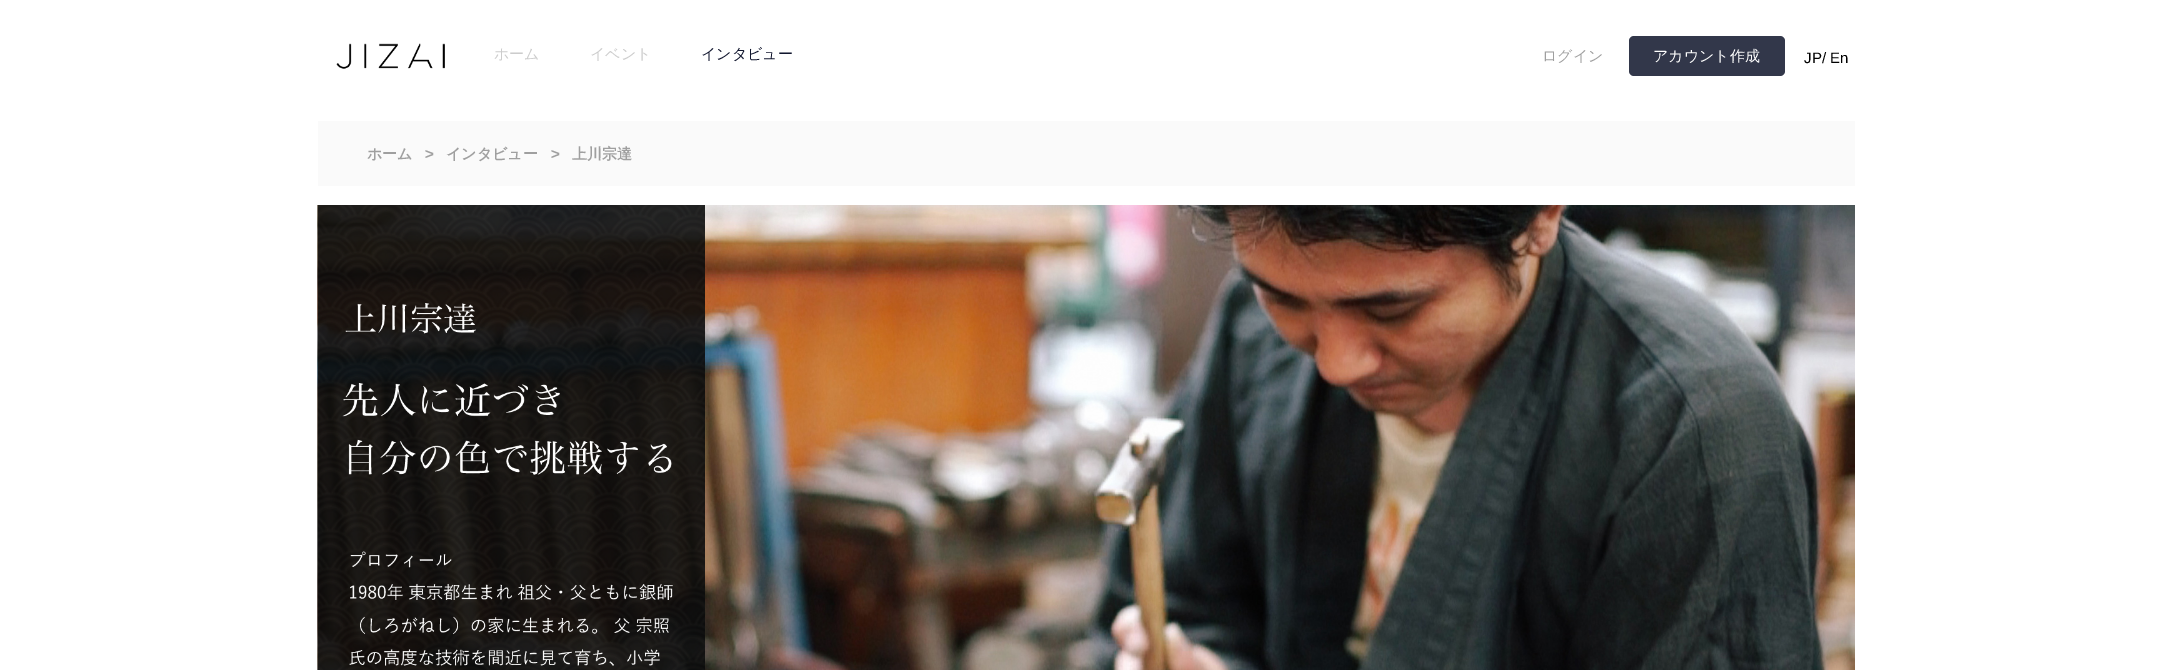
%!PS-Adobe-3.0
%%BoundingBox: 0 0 2171 670
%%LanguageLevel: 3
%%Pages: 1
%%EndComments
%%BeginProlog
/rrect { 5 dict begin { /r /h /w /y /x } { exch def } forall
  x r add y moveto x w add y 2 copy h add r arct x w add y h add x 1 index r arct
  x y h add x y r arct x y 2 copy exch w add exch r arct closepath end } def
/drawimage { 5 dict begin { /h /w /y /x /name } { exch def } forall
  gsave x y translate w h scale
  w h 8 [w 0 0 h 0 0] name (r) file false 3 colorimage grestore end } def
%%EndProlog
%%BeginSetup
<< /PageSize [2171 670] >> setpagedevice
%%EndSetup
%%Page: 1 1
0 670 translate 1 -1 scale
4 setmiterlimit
1 setgray
0 0 2171 670 rectfill
(images/1.raw) 336 43 109 26 drawimage
0.196 0.216 0.29 setrgbcolor
1629 36 156 40 5 rrect fill
0.98 setgray
318 121 1537 65 rectfill
(images/2.raw) 317 205 1538 465 drawimage
(images/3.raw) 317 205 388 465 drawimage
/WenQuanYiZenHei-Medium [15 0 0 -15 0 0] selectfont
0.8 setgray
494 59 moveto (ホーム) show
590 59 moveto (イベント) show
0.067 0.086 0.18 setrgbcolor
701 59 moveto (インタビュー) show
0.624 setgray
1542 61 moveto (ログイン) show
1 setgray
1653 61 moveto (アカウント作成) show
/LiberationSans-Regular [15 0 0 -15 0 0] selectfont
0 setgray
1804 63 moveto (JP/ En) show
/WenQuanYiZenHei-Bold [15 0 0 -15 0 0] selectfont
0.624 setgray
367 159 moveto (ホーム) show
/LiberationSans-Bold [15 0 0 -15 0 0] selectfont
425 159 moveto (>) show
/WenQuanYiZenHei-Bold [15 0 0 -15 0 0] selectfont
446 159 moveto (インタビュー) show
/LiberationSans-Bold [15 0 0 -15 0 0] selectfont
551 159 moveto (>) show
/WenQuanYiZenHei-Bold [15 0 0 -15 0 0] selectfont
572 159 moveto (上川宗達) show
showpage
%%EOF
